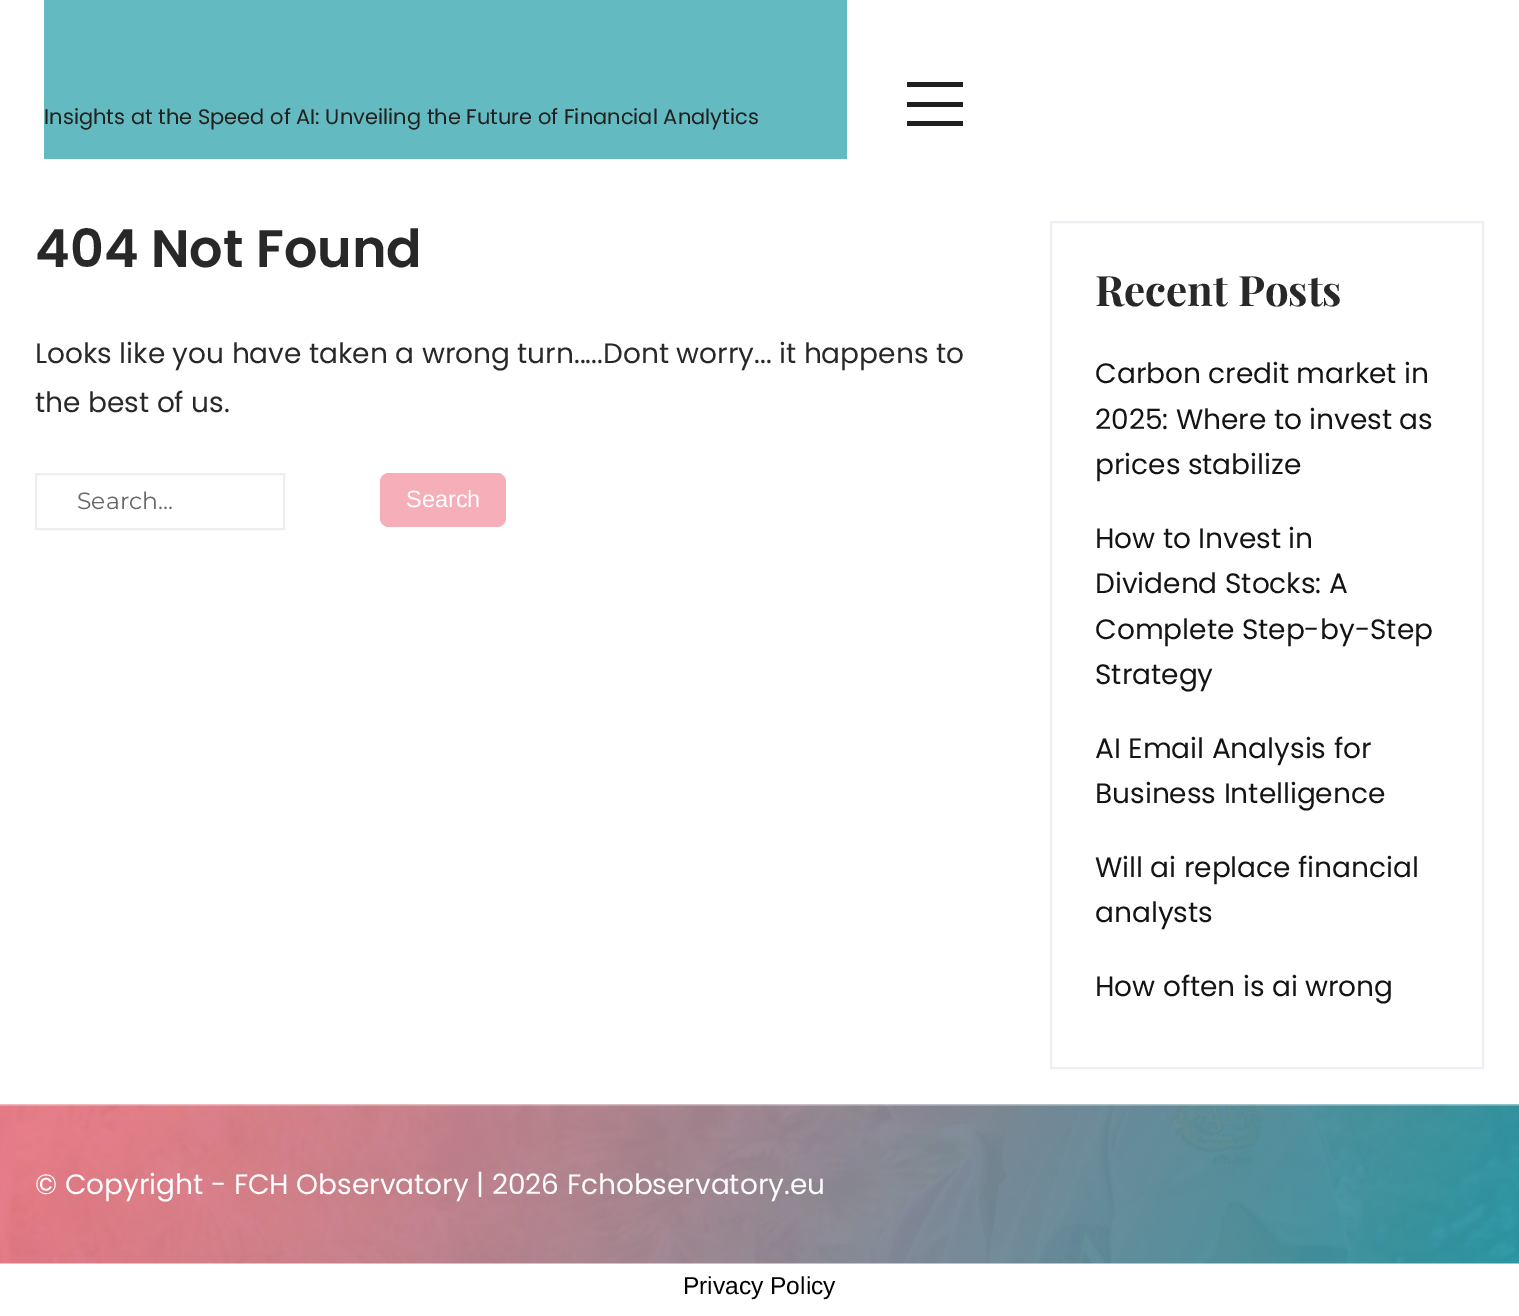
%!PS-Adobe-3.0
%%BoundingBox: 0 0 1519 1316
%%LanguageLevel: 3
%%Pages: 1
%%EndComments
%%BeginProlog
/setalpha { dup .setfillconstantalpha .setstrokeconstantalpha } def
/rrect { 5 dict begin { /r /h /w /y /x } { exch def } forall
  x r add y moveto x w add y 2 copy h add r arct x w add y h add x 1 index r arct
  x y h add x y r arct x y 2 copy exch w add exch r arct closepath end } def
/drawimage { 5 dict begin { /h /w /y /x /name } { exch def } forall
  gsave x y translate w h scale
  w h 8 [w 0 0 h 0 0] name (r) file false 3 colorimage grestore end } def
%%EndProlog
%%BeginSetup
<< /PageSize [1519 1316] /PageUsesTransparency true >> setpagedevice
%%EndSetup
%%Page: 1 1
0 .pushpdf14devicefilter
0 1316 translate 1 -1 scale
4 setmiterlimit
1 setgray
0 0 1519 1316 rectfill
0.392 0.729 0.757 setrgbcolor
44 0 803 159 rectfill
0.129 0.125 0.122 setrgbcolor
907 82 56 5 rectfill
907 102 56 5 rectfill
907 121 56 5 rectfill
0.933 setgray
2 setlinewidth
36 474 248 55 rectstroke
0.965 0.686 0.722 setrgbcolor
380 473 126 54 9 rrect fill
0.933 0.937 0.961 setrgbcolor
1051 222 432 846 rectstroke
(images/1.raw) 0 1104 1519 160 drawimage
0.25 setalpha
1 setgray
0 1104 1519 2 rectfill
/Poppins-Regular [21 0 0 -21 0 0] selectfont
1 setalpha
0.129 0.125 0.122 setrgbcolor
44 124 moveto (Insights at the Speed of AI: Unveiling the Future of Financial Analytics) show
/Poppins-SemiBold [52.5 0 0 -52.5 0 0] selectfont
0.157 setgray
35 267 moveto (404 Not Found) show
/Poppins-Regular [28 0 0 -28 0 0] selectfont
35 363 moveto (Looks like you have taken a wrong turn.....Dont worry... it happens to) show
35 412 moveto (the best of us.) show
/Montserrat-Regular [23.5 0 0 -23.5 0 0] selectfont
0.408 setgray
77 509 moveto (Search...) show
/LiberationSans-Regular [23.5 0 0 -23.5 0 0] selectfont
1 setgray
406 507 moveto (Search) show
/PlayfairDisplay-Bold [42 0 0 -42 0 0] selectfont
0.157 setgray
1095 306 moveto (Recent Posts) show
/Poppins-Regular [28 0 0 -28 0 0] selectfont
0.078 setgray
1095 383 moveto (Carbon credit market in) show
1095 429 moveto (2025: Where to invest as) show
1095 474 moveto (prices stabilize) show
1095 548 moveto (How to Invest in) show
1095 593 moveto (Dividend Stocks: A) show
1095 639 moveto (Complete Step-by-Step) show
1095 684 moveto (Strategy) show
1095 758 moveto (AI Email Analysis for) show
1095 803 moveto (Business Intelligence) show
1095 877 moveto (Will ai replace financial) show
1095 922 moveto (analysts) show
1095 996 moveto (How often is ai wrong) show
1 setgray
35 1194 moveto (© Copyright - FCH Observatory | 2026 Fchobservatory.eu) show
/LiberationSans-Regular [24.5 0 0 -24.5 0 0] selectfont
0 setgray
683 1294 moveto (Privacy Policy) show
.poppdf14devicefilter showpage
%%EOF
